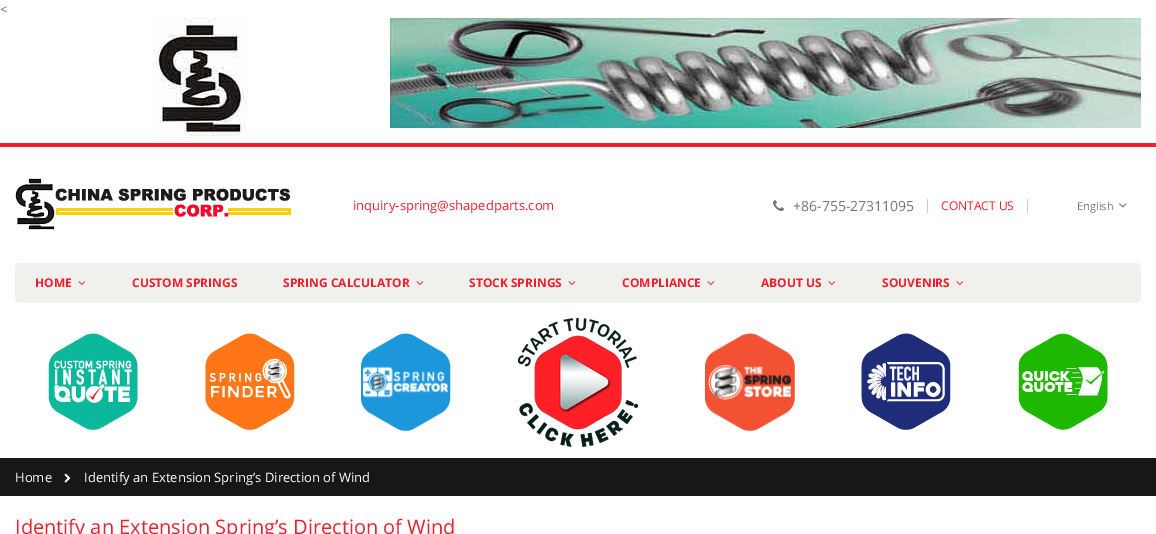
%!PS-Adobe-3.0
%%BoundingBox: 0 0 1156 534
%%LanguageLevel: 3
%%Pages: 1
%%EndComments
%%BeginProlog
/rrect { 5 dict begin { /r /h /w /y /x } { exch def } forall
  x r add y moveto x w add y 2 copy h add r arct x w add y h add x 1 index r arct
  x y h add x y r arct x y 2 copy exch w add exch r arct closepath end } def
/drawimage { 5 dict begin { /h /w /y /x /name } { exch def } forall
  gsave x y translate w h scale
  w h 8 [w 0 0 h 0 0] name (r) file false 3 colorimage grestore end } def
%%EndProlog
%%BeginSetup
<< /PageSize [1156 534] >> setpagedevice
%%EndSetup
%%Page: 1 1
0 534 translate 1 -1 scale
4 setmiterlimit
1 setgray
0 0 1156 534 rectfill
(images/1.raw) 152 18 96 120 drawimage
(images/2.raw) 390 18 751 110 drawimage
0.933 0.125 0.18 setrgbcolor
0 143 1156 4 rectfill
(images/3.raw) 15 178 276 52 drawimage
(images/4.raw) 773 200 11 12 drawimage
0.8 setgray
927 199 1 14 rectfill
1027 199 1 14 rectfill
(images/5.raw) 1119 203 7 5 drawimage
0.941 0.941 0.929 setrgbcolor
15 263 1126 40 5 rrect fill
(images/6.raw) 78 281 8 4 drawimage
(images/6.raw) 416 281 8 4 drawimage
(images/6.raw) 568 281 8 4 drawimage
(images/6.raw) 707 281 8 4 drawimage
(images/6.raw) 828 281 8 4 drawimage
(images/6.raw) 956 281 8 4 drawimage
(images/7.raw) 48 333 90 97 drawimage
(images/8.raw) 205 333 90 97 drawimage
(images/9.raw) 361 333 90 98 drawimage
(images/10.raw) 518 318 120 129 drawimage
(images/11.raw) 705 333 90 98 drawimage
(images/12.raw) 861 333 90 97 drawimage
(images/13.raw) 1018 333 90 97 drawimage
0.09 setgray
0 458 1156 38 rectfill
(images/14.raw) 64 473 7 10 drawimage
/OpenSans-Regular [13 0 0 -13 0 0] selectfont
0.467 setgray
0 14 moveto (<) show
0.933 0.125 0.18 setrgbcolor
353 210 moveto (inquiry-spring@shapedparts.com) show
/OpenSans-Regular [14 0 0 -14 0 0] selectfont
0.467 setgray
793 211 moveto (+86-755-27311095) show
/OpenSans-Regular [12 0 0 -12 0 0] selectfont
0.933 0.125 0.18 setrgbcolor
941 210 moveto (CONTACT US) show
/OpenSans-Regular [11 0 0 -11 0 0] selectfont
0.467 setgray
1077 210 moveto (English) show
/OpenSans-Bold [12 0 0 -12 0 0] selectfont
0.933 0.125 0.18 setrgbcolor
35 287 moveto (HOME) show
132 287 moveto (CUSTOM SPRINGS) show
283 287 moveto (SPRING CALCULATOR) show
469 287 moveto (STOCK SPRINGS) show
622 287 moveto (COMPLIANCE) show
761 287 moveto (ABOUT US) show
882 287 moveto (SOUVENIRS) show
/OpenSans-Regular [13 0 0 -13 0 0] selectfont
1 setgray
15 482 moveto (Home) show
84 482 moveto (Identify an Extension Spring’s Direction of Wind) show
/OpenSans-Regular [20 0 0 -20 0 0] selectfont
0.933 0.125 0.18 setrgbcolor
15 534 moveto (Identify an Extension Spring’s Direction of Wind) show
showpage
%%EOF
